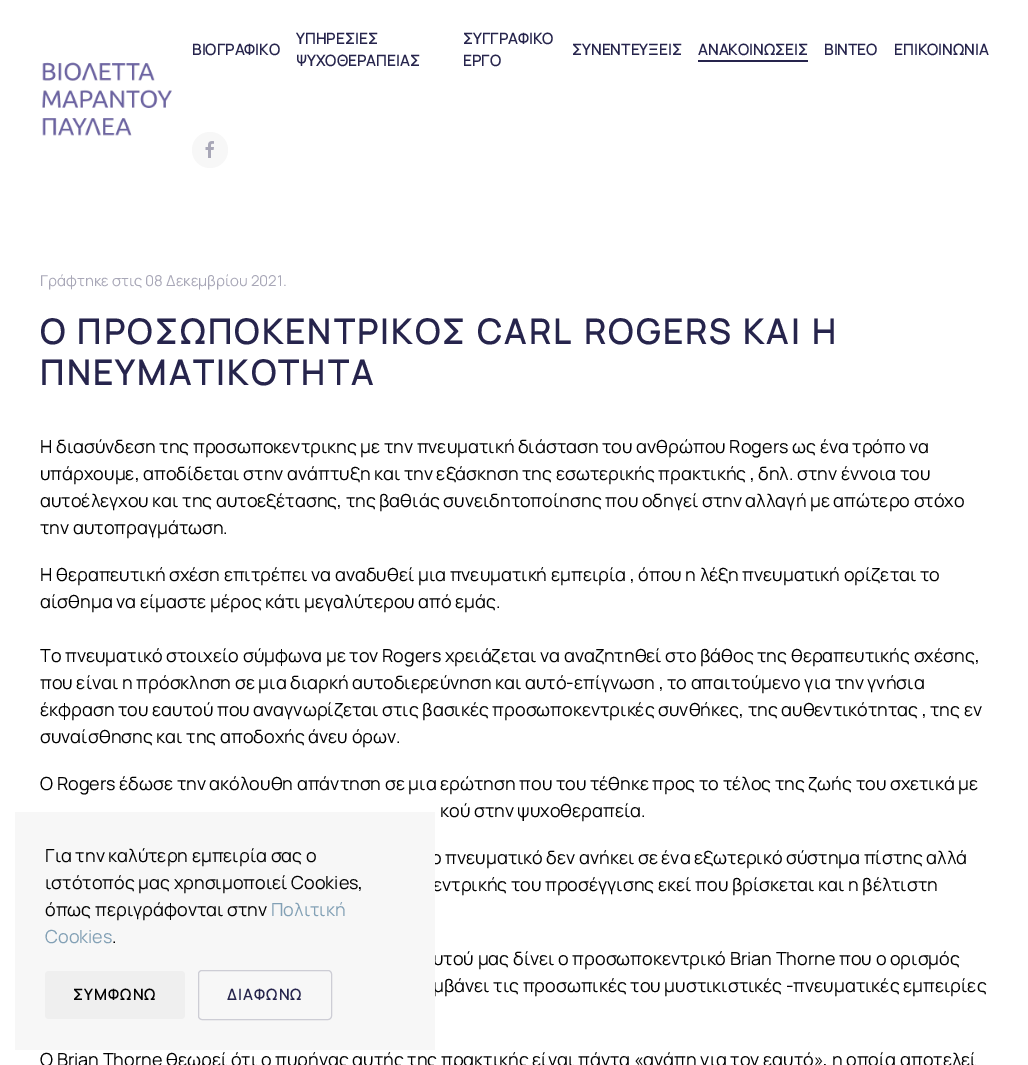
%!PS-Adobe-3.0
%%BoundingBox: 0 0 1028 1065
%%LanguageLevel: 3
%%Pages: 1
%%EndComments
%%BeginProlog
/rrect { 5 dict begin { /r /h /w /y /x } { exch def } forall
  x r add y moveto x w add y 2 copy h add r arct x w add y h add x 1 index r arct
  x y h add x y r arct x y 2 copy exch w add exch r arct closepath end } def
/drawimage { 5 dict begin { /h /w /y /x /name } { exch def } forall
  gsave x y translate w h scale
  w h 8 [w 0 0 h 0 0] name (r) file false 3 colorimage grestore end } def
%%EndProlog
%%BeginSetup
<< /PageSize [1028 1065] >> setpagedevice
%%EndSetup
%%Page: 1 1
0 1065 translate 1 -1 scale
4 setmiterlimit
1 setgray
0 0 1028 1065 rectfill
0.149 0.141 0.298 setrgbcolor
698 60 110 2 rectfill
0.969 setgray
newpath 210 150 18 0 360 arc closepath fill
(images/1.raw) 205 141 9 17 drawimage
(images/2.raw) 42 62 130 74 drawimage
/Manrope-Bold [15 0 0 -15 0 0] selectfont
0.149 0.141 0.298 setrgbcolor
192 55 moveto 0.4 0 (ΒΙΟΓΡΑΦΙΚΟ) ashow
296 44 moveto 0.4 0 (ΥΠΗΡΕΣΙΕΣ) ashow
296 66 moveto 0.4 0 (ΨΥΧΟΘΕΡΑΠΕΙΑΣ) ashow
463 44 moveto 0.4 0 (ΣΥΓΓΡΑΦΙΚΟ) ashow
463 66 moveto 0.4 0 (ΕΡΓΟ) ashow
572 55 moveto 0.4 0 (ΣΥΝΕΝΤΕΥΞΕΙΣ) ashow
698 55 moveto 0.4 0 (ΑΝΑΚΟΙΝΩΣΕΙΣ) ashow
824 55 moveto 0.4 0 (ΒΙΝΤΕΟ) ashow
894 55 moveto 0.4 0 (ΕΠΙΚΟΙΝΩΝΙΑ) ashow
/Manrope-ExtraLight [15 0 0 -15 0 0] selectfont
0.659 0.655 0.718 setrgbcolor
40 286 moveto (Γράφτηκε στις 08 Δεκεμβρίου 2021.) show
/Manrope-Bold [34 0 0 -34 0 0] selectfont
0.149 0.141 0.298 setrgbcolor
40 344 moveto 3 0 (Ο ΠΡΟΣΩΠΟΚΕΝΤΡΙΚΟΣ CARL ROGERS ΚΑΙ Η) ashow
40 385 moveto 3 0 (ΠΝΕΥΜΑΤΙΚΟΤΗΤΑ) ashow
/Manrope-ExtraLight [18 0 0 -18 0 0] selectfont
0 setgray
40 453 moveto (Η διασύνδεση της προσωποκεντρικης με την πνευματική διάσταση του ανθρώπου Rogers ως ένα τρόπο να) show
40 480 moveto (υπάρχουμε, αποδίδεται στην ανάπτυξη και την εξάσκηση της εσωτερικής πρακτικής , δηλ. στην έννοια του) show
40 507 moveto (αυτοέλεγχου και της αυτοεξέτασης, της βαθιάς συνειδητοποίησης που οδηγεί στην αλλαγή με απώτερο στόχο) show
40 534 moveto (την αυτοπραγμάτωση.) show
40 581 moveto (Η θεραπευτική σχέση επιτρέπει να αναδυθεί μια πνευματική εμπειρία , όπου η λέξη πνευματική ορίζεται το) show
40 608 moveto (αίσθημα να είμαστε μέρος κάτι μεγαλύτερου από εμάς.) show
40 662 moveto (Το πνευματικό στοιχείο σύμφωνα με τον Rogers χρειάζεται να αναζητηθεί στο βάθος της θεραπευτικής σχέσης,) show
40 689 moveto (που είναι η πρόσκληση σε μια διαρκή αυτοδιερεύνηση και αυτό-επίγνωση , το απαιτούμενο για την γνήσια) show
40 716 moveto (έκφραση του εαυτού που αναγνωρίζεται στις βασικές προσωποκεντρικές συνθήκες, της αυθεντικότητας , της εν) show
40 743 moveto (συναίσθησης και της αποδοχής άνευ όρων.) show
40 790 moveto (Ο Rogers έδωσε την ακόλουθη απάντηση σε μια ερώτηση που του τέθηκε προς το τέλος της ζωής του σχετικά με) show
440 817 moveto (κού στην ψυχοθεραπεία.) show
431 864 moveto (ο πνευματικό δεν ανήκει σε ένα εξωτερικό σύστημα πίστης αλλά) show
433 891 moveto (εντρικής του προσέγγισης εκεί που βρίσκεται και η βέλτιστη) show
433 965 moveto (υτού μας δίνει ο προσωποκεντρικό Brian Thorne που ο ορισμός) show
433 992 moveto (μβάνει τις προσωπικές του μυστικιστικές -πνευματικές εμπειρίες) show
40 1066 moveto (Ο Brian Thorne θεωρεί ότι ο πυρήνας αυτής της πρακτικής είναι πάντα «αγάπη για τον εαυτό», η οποία αποτελεί) show
0.969 setgray
15 812 420 238 rectfill
0 setgray
45 862 moveto (Για την καλύτερη εμπειρία σας ο) show
45 889 moveto (ιστότοπός μας χρησιμοποιεί Cookies,) show
45 916 moveto (όπως περιγράφονται στην) show
0.51 0.627 0.71 setrgbcolor
271 916 moveto (Πολιτική) show
45 943 moveto (Cookies) show
0 setgray
112 943 moveto (.) show
0.937 setgray
45 971 140 48 4 rrect fill
/Manrope-Bold [15 0 0 -15 0 0] selectfont
0 setgray
73 1000 moveto 1.5 0 (ΣΥΜΦΩΝΩ) ashow
0.804 0.804 0.835 setrgbcolor
198.5 970.5 133 49 3.5 rrect stroke
0.149 0.141 0.298 setrgbcolor
227 1000 moveto 1.5 0 (ΔΙΑΦΩΝΩ) ashow
showpage
%%EOF
